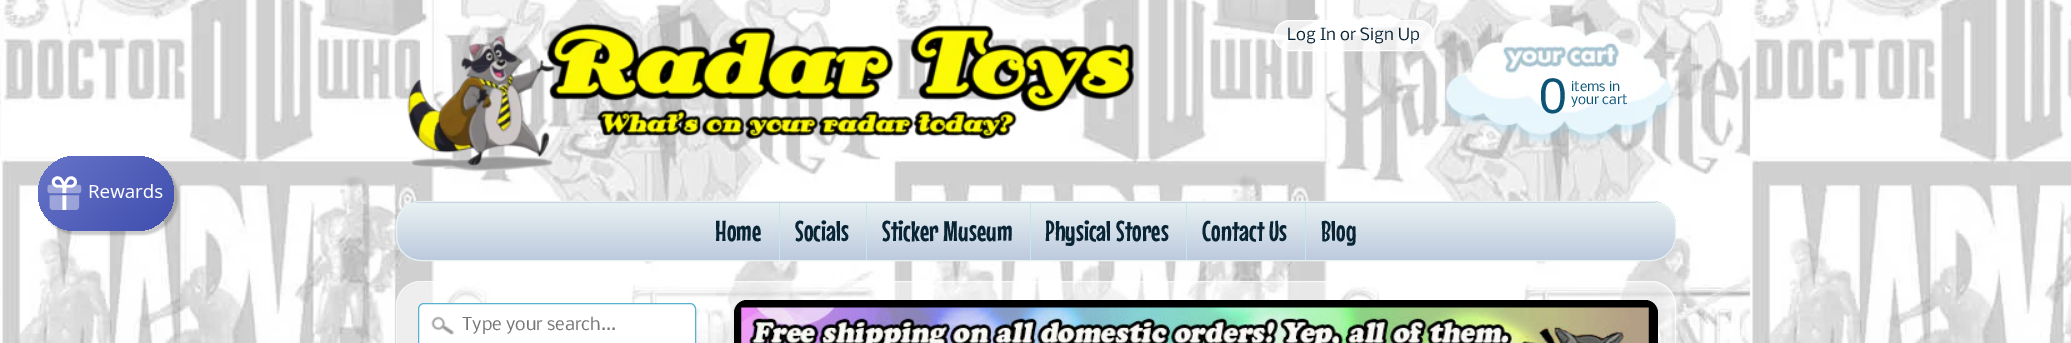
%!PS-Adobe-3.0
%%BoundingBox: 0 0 2071 343
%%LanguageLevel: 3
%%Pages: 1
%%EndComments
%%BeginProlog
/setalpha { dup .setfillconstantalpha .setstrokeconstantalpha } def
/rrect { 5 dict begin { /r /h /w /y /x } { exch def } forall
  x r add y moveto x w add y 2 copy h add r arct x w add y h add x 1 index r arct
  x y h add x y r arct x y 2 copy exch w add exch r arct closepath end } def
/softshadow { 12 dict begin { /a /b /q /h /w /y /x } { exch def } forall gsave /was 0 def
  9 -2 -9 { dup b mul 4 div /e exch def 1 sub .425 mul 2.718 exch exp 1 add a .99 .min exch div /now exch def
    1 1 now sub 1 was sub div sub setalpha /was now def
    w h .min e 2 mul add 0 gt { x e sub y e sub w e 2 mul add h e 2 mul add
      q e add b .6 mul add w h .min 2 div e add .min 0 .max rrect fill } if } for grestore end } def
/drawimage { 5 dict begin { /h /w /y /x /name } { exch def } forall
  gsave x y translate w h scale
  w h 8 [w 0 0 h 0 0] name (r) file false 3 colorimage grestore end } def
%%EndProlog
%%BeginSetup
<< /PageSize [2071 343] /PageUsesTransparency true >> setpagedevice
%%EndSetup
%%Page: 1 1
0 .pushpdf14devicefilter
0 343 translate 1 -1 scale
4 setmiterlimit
1 setgray
0 0 2071 343 rectfill
(images/1.raw) 0 0 2071 343 drawimage
0 setgray
41 160 137 75 37.5 1 0.2 softshadow
gsave 38 156 136 75 37.5 rrect clip newpath
<< /ShadingType 2 /ColorSpace /DeviceRGB /Coords [53 141 158 247] /Extend [true true] /Function << /FunctionType 2 /Domain [0 1] /C0 [0.404 0.455 0.784] /C1 [0.247 0.306 0.682] /N 1 >> >> shfill grestore
(images/2.raw) 47 176 116 34 drawimage
(images/3.raw) 407 23 728 149 drawimage
0.7 setalpha
1 setgray
1274.5 20.5 159 30 15 rrect fill
1 setalpha
1274.5 20.5 159 30 15 rrect stroke
(images/4.raw) 1443 20 231 124 drawimage
gsave
396 201 1280 60 25 rrect clip newpath
gsave newpath 411 201 moveto 1661 201 lineto 1661 203 lineto 411 203 lineto closepath clip newpath
<< /ShadingType 2 /ColorSpace /DeviceRGB /Coords [1036 145 1036 203] /Extend [true true] /Function << /FunctionType 2 /Domain [0 1] /C0 [0.914 0.949 0.949] /C1 [0.741 0.792 0.871] /N 1 >> >> shfill grestore
gsave newpath 396 203 moveto 1676 203 lineto 1676 260 lineto 396 260 lineto closepath clip newpath
<< /ShadingType 2 /ColorSpace /DeviceRGB /Coords [1036 202 1036 260] /Extend [true true] /Function << /FunctionType 2 /Domain [0 1] /C0 [0.914 0.949 0.949] /C1 [0.741 0.792 0.871] /N 1 >> >> shfill grestore
grestore
0.914 0.949 0.949 setrgbcolor
396.5 201.5 1279 59 24.5 rrect stroke
0.765 0.906 0.918 setrgbcolor
779 203 1 57 rectfill
866 203 1 57 rectfill
1030 203 1 57 rectfill
1186 203 1 57 rectfill
1305 203 1 57 rectfill
0.5 setalpha
1 setgray
396 281 1280 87 25 rrect fill
0.7 setalpha
396.5 281.5 1279 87 24.5 rrect stroke
0.25 setalpha
newpath 422 283 moveto 716 283 lineto 716 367 lineto 398 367 lineto 398 307 lineto 398 293.5 408.5 283 422 283 curveto closepath fill
1 setalpha
418 303 278 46 6 rrect fill
(images/5.raw) 431 316 23 19 drawimage
0.341 0.694 0.812 setrgbcolor
418.5 303.5 277 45 5.5 rrect stroke
0 setgray
734 300 924 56 13 rrect fill
(images/6.raw) 741 307 908 36 drawimage
/Nobile-Regular [16 0 0 -16 0 0] selectfont
0.031 0.141 0.208 setrgbcolor
1287 40 moveto (Log In or Sign Up) show
/LiberationSans-Regular [50 0 0 -50 0 0] selectfont
0.043 0.329 0.459 setrgbcolor
1539 113 moveto (0) show
/Nobile-Regular [13 0 0 -13 0 0] selectfont
1571 91 moveto (items in) show
1571 104 moveto (your cart) show
/MouseMemoirs-Regular [28.75 0 0 -28.75 0 0] selectfont
0.031 0.141 0.208 setrgbcolor
715 241 moveto (Home) show
795 241 moveto (Socials) show
882 241 moveto (Sticker Museum) show
1045 241 moveto (Physical Stores) show
1202 241 moveto (Contact Us) show
1321 241 moveto (Blog) show
/Nobile-Regular [17 0 0 -17 0 0] selectfont
0.459 setgray
462 330 moveto (Type your search...) show
.poppdf14devicefilter showpage
%%EOF
